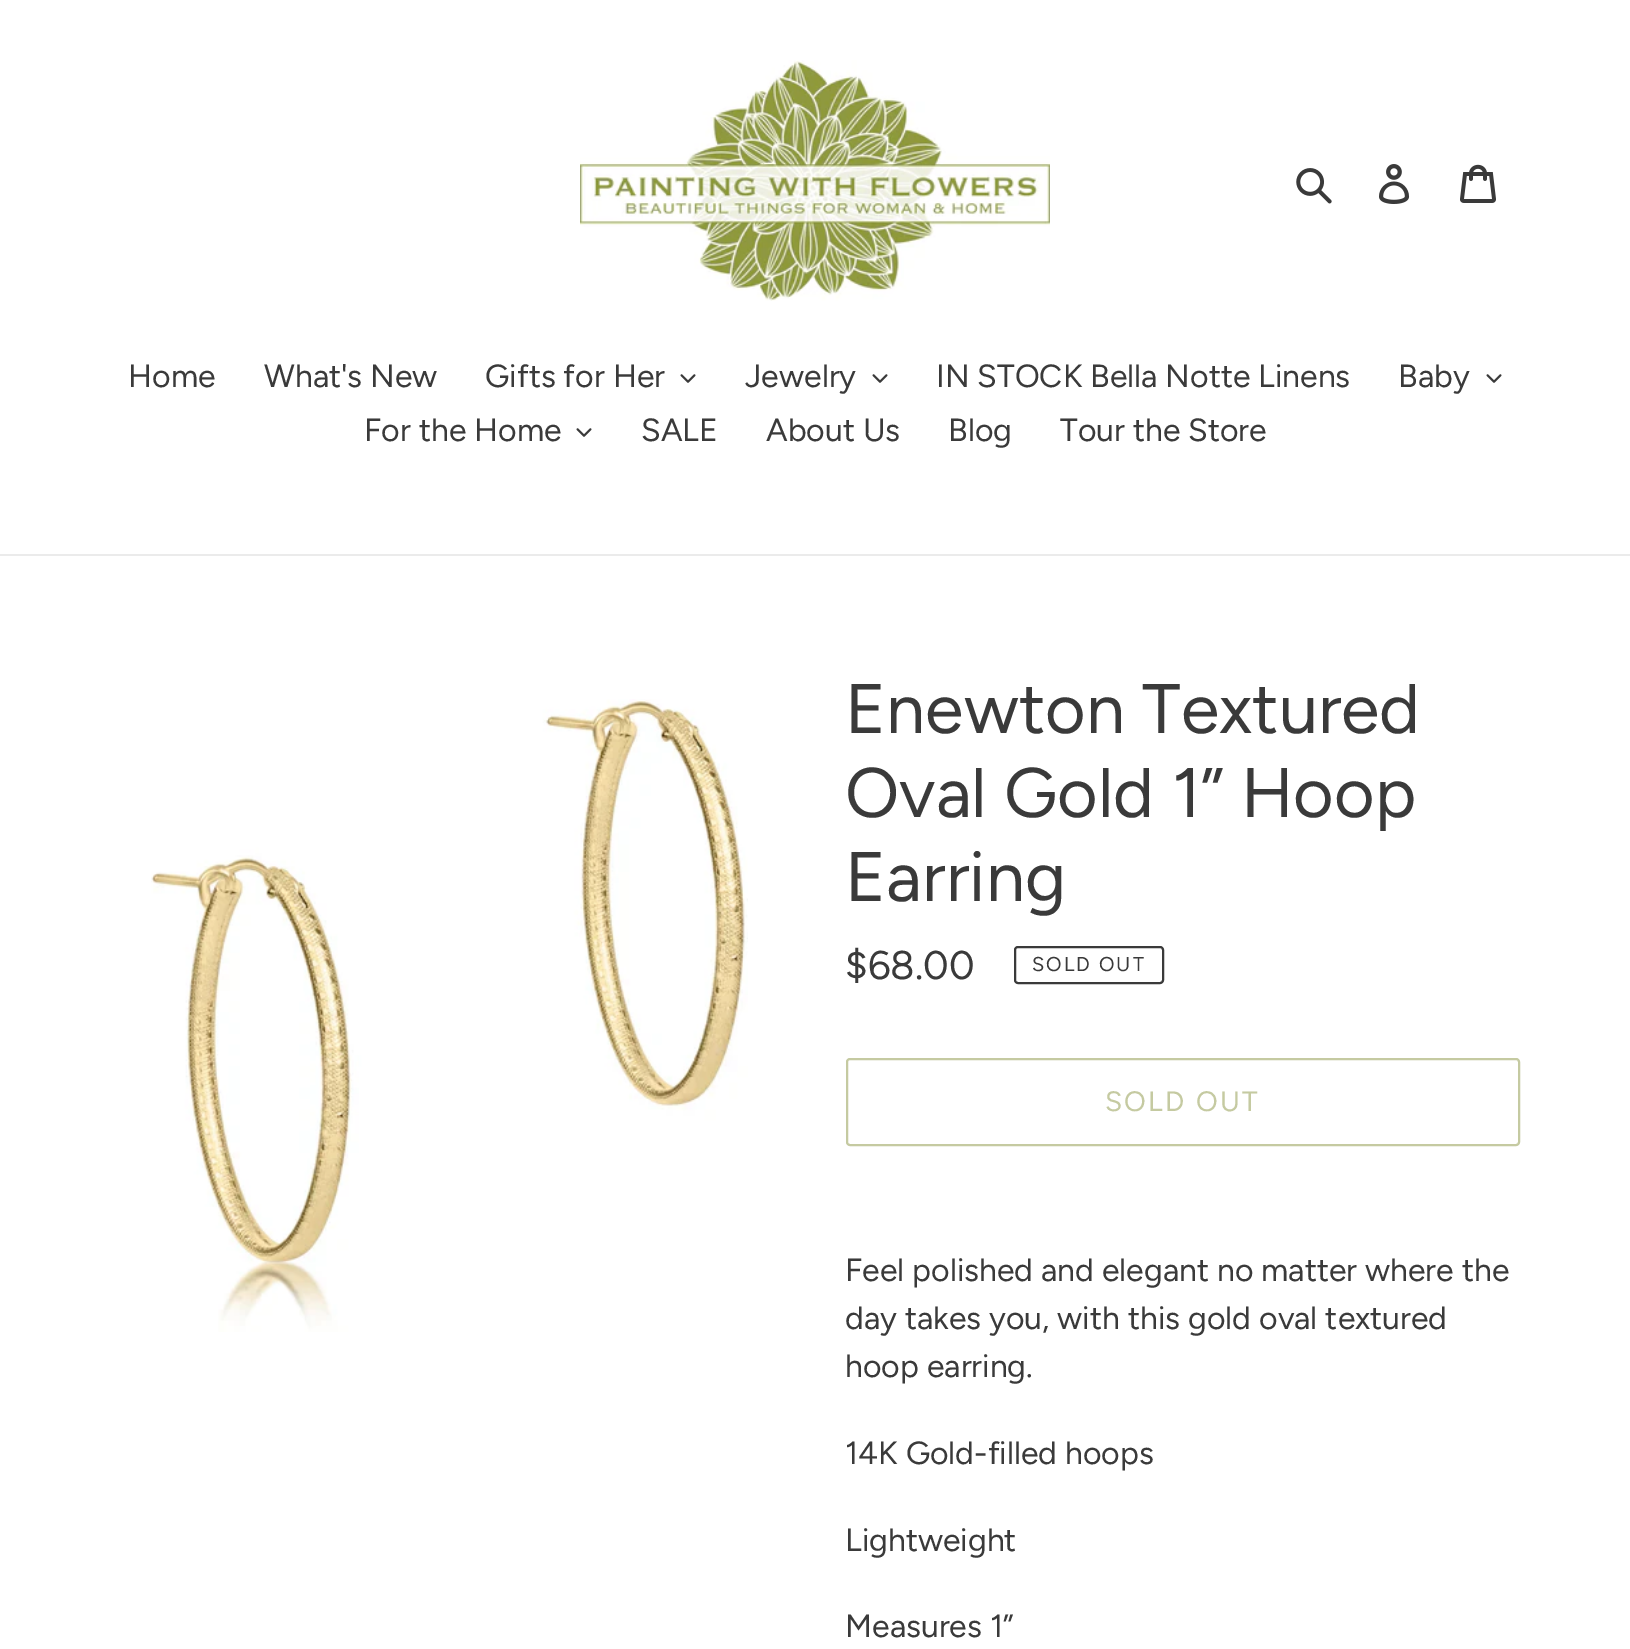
%!PS-Adobe-3.0
%%BoundingBox: 0 0 1630 1649
%%LanguageLevel: 3
%%Pages: 1
%%EndComments
%%BeginProlog
/rrect { 5 dict begin { /r /h /w /y /x } { exch def } forall
  x r add y moveto x w add y 2 copy h add r arct x w add y h add x 1 index r arct
  x y h add x y r arct x y 2 copy exch w add exch r arct closepath end } def
/drawimage { 5 dict begin { /h /w /y /x /name } { exch def } forall
  gsave x y translate w h scale
  w h 8 [w 0 0 h 0 0] name (r) file false 3 colorimage grestore end } def
%%EndProlog
%%BeginSetup
<< /PageSize [1630 1649] >> setpagedevice
%%EndSetup
%%Page: 1 1
0 1649 translate 1 -1 scale
4 setmiterlimit
1 setgray
0 0 1630 1649 rectfill
(images/1.raw) 580 60 470 241 drawimage
(images/2.raw) 1296 168 36 36 drawimage
(images/3.raw) 1379 164 31 40 drawimage
(images/4.raw) 1460 164 36 39 drawimage
0.922 setgray
0 554 1630 2 rectfill
(images/5.raw) 680 374 16 9 drawimage
(images/5.raw) 872 374 16 9 drawimage
(images/5.raw) 1486 374 16 9 drawimage
(images/5.raw) 576 428 16 9 drawimage
(images/6.raw) 151 699 597 633 drawimage
0.227 setgray
2 setlinewidth
1015 947 148 36 3 rrect stroke
0.773 0.792 0.631 setrgbcolor
847 1059 672 86 3 rrect stroke
/Figtree-Regular [32 0 0 -32 0 0] selectfont
0.227 setgray
128 387 moveto (Home) show
264 387 moveto (What's New) show
485 387 moveto (Gifts for Her) show
745 387 moveto (Jewelry) show
936 387 moveto (IN STOCK Bella Notte Linens) show
1398 387 moveto (Baby) show
364 441 moveto (For the Home) show
641 441 moveto (SALE) show
766 441 moveto (About Us) show
948 441 moveto (Blog) show
1060 441 moveto (Tour the Store) show
/Figtree-Regular [70 0 0 -70 0 0] selectfont
845 733 moveto (Enewton Textured) show
845 817 moveto (Oval Gold 1” Hoop) show
845 901 moveto (Earring) show
/Figtree-Regular [40 0 0 -40 0 0] selectfont
845 979 moveto ($68.00) show
/Figtree-Regular [20 0 0 -20 0 0] selectfont
1032 971 moveto 2 0 (SOLD OUT) ashow
/Figtree-Regular [28 0 0 -28 0 0] selectfont
0.773 0.792 0.631 setrgbcolor
1105 1111 moveto 2.25 0 (SOLD OUT) ashow
/Figtree-Regular [32 0 0 -32 0 0] selectfont
0.227 setgray
845 1281 moveto (Feel polished and elegant no matter where the) show
845 1329 moveto (day takes you, with this gold oval textured) show
845 1377 moveto (hoop earring.) show
845 1464 moveto (14K Gold-filled hoops) show
845 1551 moveto (Lightweight) show
845 1637 moveto (Measures 1”) show
showpage
%%EOF
